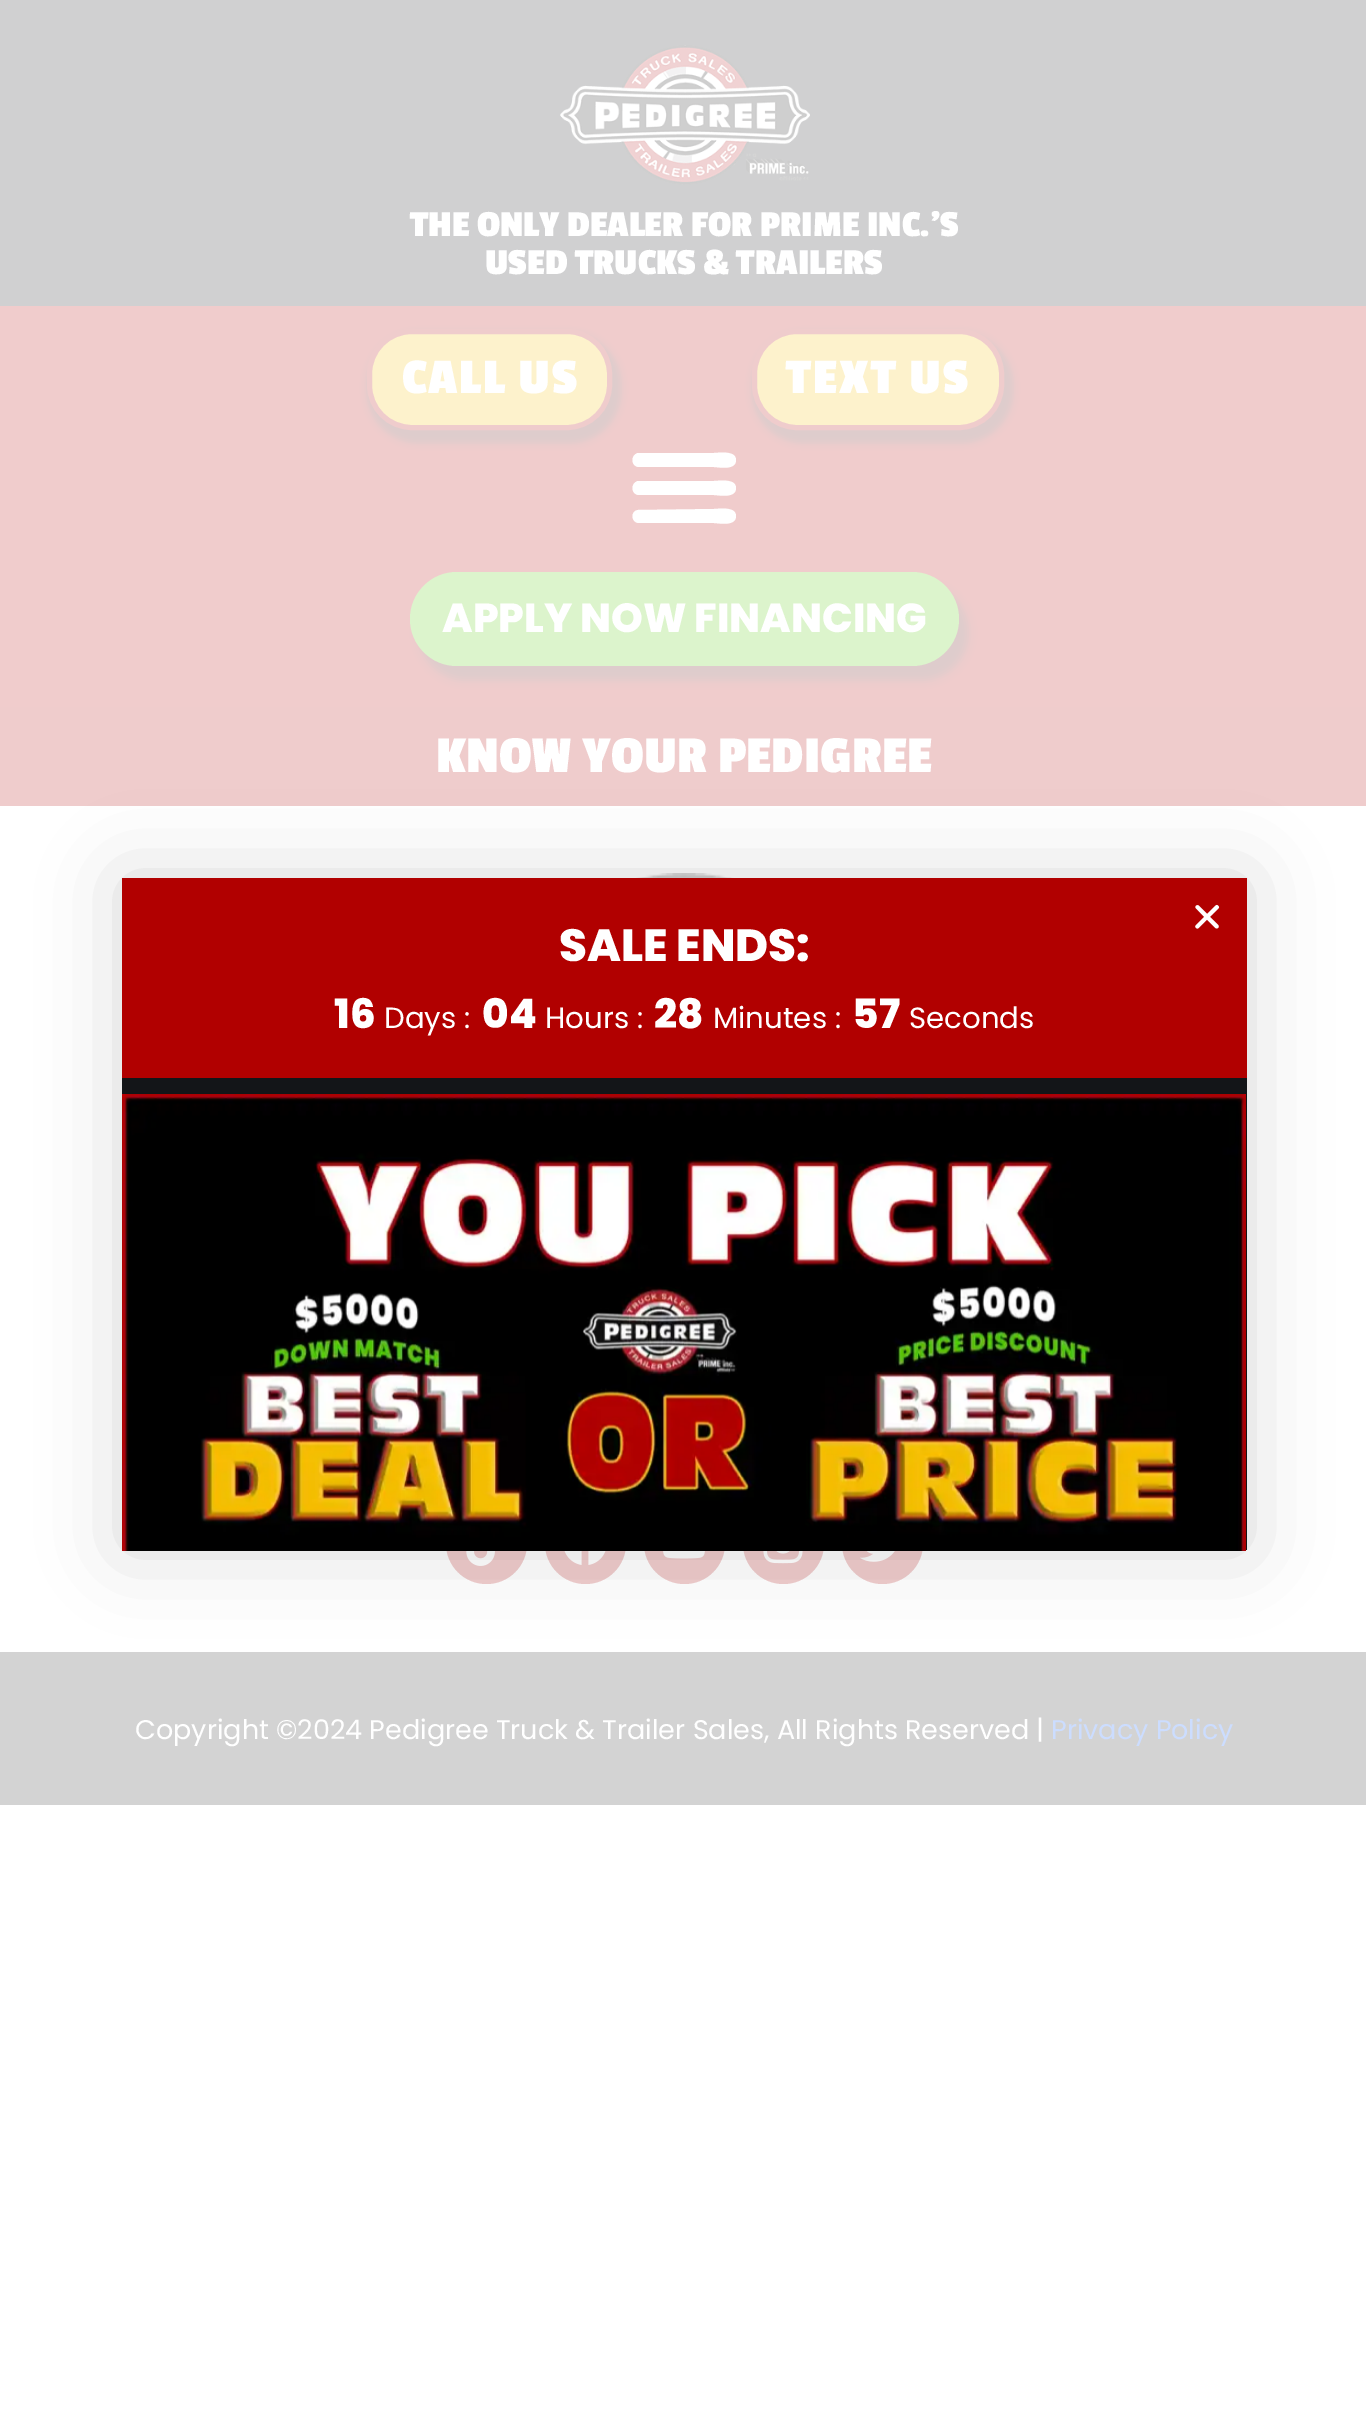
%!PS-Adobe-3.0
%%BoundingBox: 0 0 1366 2427
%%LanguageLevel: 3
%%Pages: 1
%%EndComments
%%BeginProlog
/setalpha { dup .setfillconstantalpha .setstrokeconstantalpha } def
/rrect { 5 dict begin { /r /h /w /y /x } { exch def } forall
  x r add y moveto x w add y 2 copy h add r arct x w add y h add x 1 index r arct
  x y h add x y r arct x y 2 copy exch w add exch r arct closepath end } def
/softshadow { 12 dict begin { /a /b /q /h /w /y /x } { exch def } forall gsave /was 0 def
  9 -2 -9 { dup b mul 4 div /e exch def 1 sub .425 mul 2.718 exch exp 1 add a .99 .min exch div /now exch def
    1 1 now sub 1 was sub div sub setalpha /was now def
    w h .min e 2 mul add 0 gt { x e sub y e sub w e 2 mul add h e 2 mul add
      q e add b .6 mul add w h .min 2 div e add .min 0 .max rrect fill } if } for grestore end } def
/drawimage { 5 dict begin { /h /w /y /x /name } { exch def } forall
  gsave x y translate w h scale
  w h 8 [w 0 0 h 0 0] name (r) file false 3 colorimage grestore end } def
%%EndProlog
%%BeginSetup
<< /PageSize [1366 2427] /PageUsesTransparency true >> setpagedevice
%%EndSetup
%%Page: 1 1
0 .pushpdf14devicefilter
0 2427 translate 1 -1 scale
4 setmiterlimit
1 setgray
0 0 1366 2427 rectfill
0.816 0.816 0.82 setrgbcolor
0 0 1366 306 rectfill
(images/1.raw) 560 45 250 140 drawimage
0.941 0.8 0.8 setrgbcolor
0 306 1366 401 rectfill
0.8 setgray
367 333 254 110 50 3.5 0.5 softshadow
0.992 0.949 0.8 setrgbcolor
369.5 331.5 240 96 42.5 rrect gsave fill grestore
0.937 0.8 0.8 setrgbcolor
5 setlinewidth
stroke
0.8 setgray
752 333 261 110 50 3.5 0.5 softshadow
0.992 0.949 0.8 setrgbcolor
754.5 331.5 247 96 42.5 rrect gsave fill grestore
0.937 0.8 0.8 setrgbcolor
stroke
1 setgray
newpath 639 467 moveto 714 467 lineto 718 467 736 471 736 460 curveto 736 450 718 453 714 453 curveto 638 453 lineto 630 455 631 467 639 467 curveto closepath 639 495 moveto 714 495 lineto 718 495 736 499 736 488 curveto 736 478 718 481 714 481 curveto 638 481 lineto 630 483 631 495 639 495 curveto closepath 639 523 moveto 714 523 lineto 718 523 736 527 736 516 curveto 736 506 718 509 714 509 curveto 638 510 lineto 630 511 631 523 639 523 curveto closepath fill
0.8 setgray
419 585 549 95 47.5 4.5 0.5 softshadow
0.863 0.957 0.8 setrgbcolor
410 572 549 94 47 rrect fill
0.937 0.8 0.8 setrgbcolor
0 707 1366 99 rectfill
(images/2.raw) 636 873 98 5 drawimage
newpath 486.5 1543.5 40.5 0 360 arc closepath fill
(images/3.raw) 466 1551 29 15 drawimage
newpath 585.5 1543.5 40.5 0 360 arc closepath fill
(images/4.raw) 564 1551 42 14 drawimage
newpath 684.5 1543.5 40.5 0 360 arc closepath fill
(images/5.raw) 663 1551 42 8 drawimage
newpath 783.5 1543.5 40.5 0 360 arc closepath fill
(images/6.raw) 763 1551 40 13 drawimage
newpath 882.5 1543.5 40.5 0 360 arc closepath fill
(images/7.raw) 860 1551 35 11 drawimage
0.827 setgray
0 1652 1366 153 rectfill
0 setgray
122 878 1125 672 0 39.5 0.15 softshadow
0.694 0 0 setrgbcolor
122 878 1125 200 rectfill
(images/8.raw) 1195 904 25 25 drawimage
0.075 0.082 0.094 setrgbcolor
122 1078 1125 472 rectfill
(images/9.raw) 122 1094 1124 457 drawimage
/PassionOne-Bold [38.25 0 0 -38.25 0 0] selectfont
1 setgray
410 236 moveto (THE ONLY DEALER FOR PRIME INC.'S) show
485 274 moveto (USED TRUCKS & TRAILERS) show
/PassionOne-Bold [52 0 0 -52 0 0] selectfont
402 393 moveto 2 0 (CALL US) ashow
786 393 moveto 2 0 (TEXT US) ashow
/Poppins-ExtraBold [40.5 0 0 -40.5 0 0] selectfont
442 632 moveto (APPLY NOW FINANCING) show
/PassionOne-Bold [54 0 0 -54 0 0] selectfont
436 772 moveto (KNOW YOUR PEDIGREE) show
/Poppins-Regular [27 0 0 -27 0 0] selectfont
135 1739 moveto (Copyright ©2024 Pedigree Truck & Trailer Sales, All Rights Reserved |) show
0.8 0.867 1 setrgbcolor
1051 1739 moveto (Privacy Policy) show
/Poppins-ExtraBold [45 0 0 -45 0 0] selectfont
1 setgray
559 961 moveto (SALE ENDS:) show
/Poppins-ExtraBold [40.5 0 0 -40.5 0 0] selectfont
334 1028 moveto (16) show
/Poppins-Regular [29.25 0 0 -29.25 0 0] selectfont
384 1028 moveto (Days :) show
/Poppins-ExtraBold [40.5 0 0 -40.5 0 0] selectfont
482 1028 moveto (04) show
/Poppins-Regular [29.25 0 0 -29.25 0 0] selectfont
545 1028 moveto (Hours :) show
/Poppins-ExtraBold [40.5 0 0 -40.5 0 0] selectfont
654 1028 moveto (28) show
/Poppins-Regular [29.25 0 0 -29.25 0 0] selectfont
713 1028 moveto (Minutes :) show
/Poppins-ExtraBold [40.5 0 0 -40.5 0 0] selectfont
852 1028 moveto (57) show
/Poppins-Regular [29.25 0 0 -29.25 0 0] selectfont
909 1028 moveto (Seconds) show
.poppdf14devicefilter showpage
%%EOF
